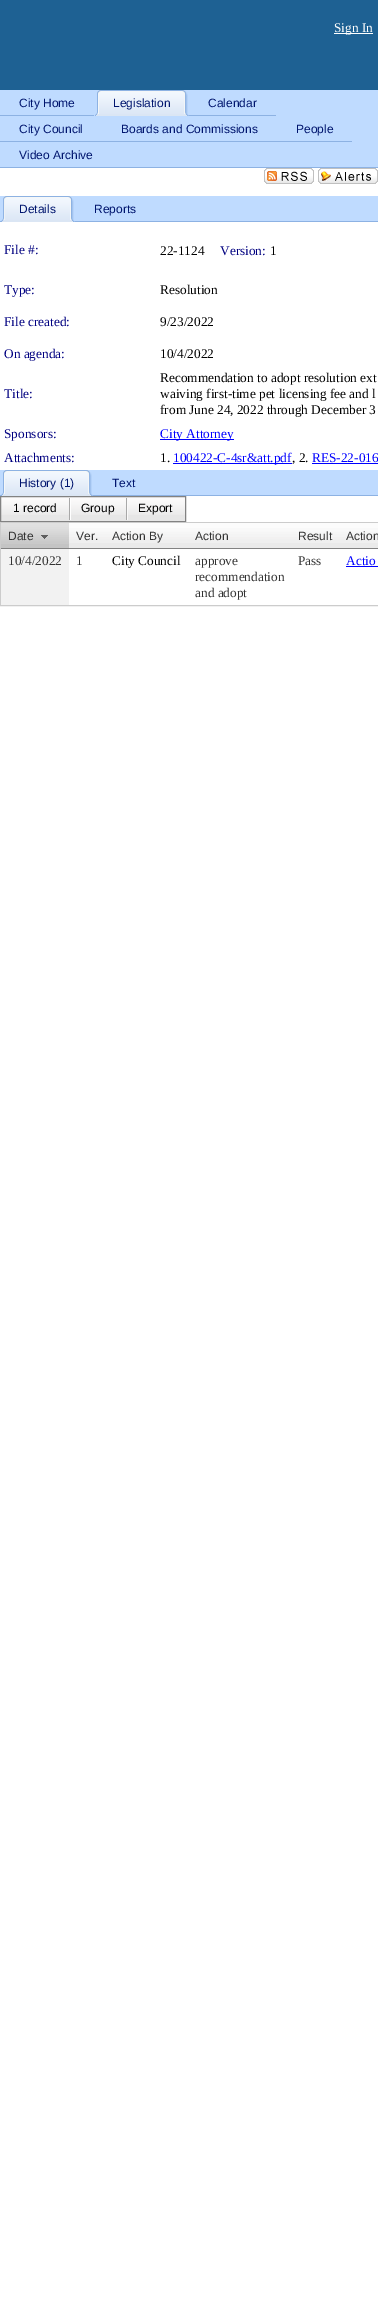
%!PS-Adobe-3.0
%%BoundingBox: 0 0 378 2307
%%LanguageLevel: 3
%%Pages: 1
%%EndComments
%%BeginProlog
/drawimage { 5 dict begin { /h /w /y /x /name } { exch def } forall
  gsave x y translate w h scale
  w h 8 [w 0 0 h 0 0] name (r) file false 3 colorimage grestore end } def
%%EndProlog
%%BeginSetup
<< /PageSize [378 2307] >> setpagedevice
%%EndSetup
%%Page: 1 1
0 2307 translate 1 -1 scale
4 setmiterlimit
1 setgray
0 0 378 2307 rectfill
0.118 0.38 0.576 setrgbcolor
0 0 378 90 rectfill
1 setgray
334 33 39 1 rectfill
0.749 0.859 1 setrgbcolor
0 90 378 77 rectfill
0.553 0.698 0.89 setrgbcolor
0 167 378 1 rectfill
0 115 94 1 rectfill
(images/1.raw) 95 90 8 26 drawimage
(images/2.raw) 103 90 86 26 drawimage
189 115 87 1 rectfill
0 141 352 1 rectfill
(images/3.raw) 264 168 50 16 drawimage
(images/4.raw) 318 168 60 16 drawimage
0.749 0.859 1 setrgbcolor
0 196 378 25 rectfill
0.553 0.698 0.89 setrgbcolor
0 221 378 1 rectfill
(images/5.raw) 1 196 8 26 drawimage
(images/6.raw) 9 196 66 26 drawimage
0 0 1 setrgbcolor
160 439 74 1 rectfill
173 463 119 1 rectfill
312 463 66 1 rectfill
0.749 0.859 1 setrgbcolor
0 470 378 25 rectfill
0.553 0.698 0.89 setrgbcolor
0 495 378 1 rectfill
(images/1.raw) 1 470 8 26 drawimage
(images/7.raw) 9 470 84 26 drawimage
0.902 setgray
1 515 184 6 rectfill
(images/8.raw) 1 497 184 18 drawimage
0.51 setgray
0.5 496.5 185 25 rectstroke
(images/9.raw) 69 498 2 22 drawimage
(images/10.raw) 126 498 2 22 drawimage
0.8 setgray
0.5 522.5 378 83 rectstroke
0.769 setgray
1 544 68 4 rectfill
(images/11.raw) 1 523 68 21 drawimage
0.51 setgray
1 548 377 1 rectfill
(images/12.raw) 41 535 7 4 drawimage
0.918 setgray
69 543 309 5 rectfill
(images/13.raw) 69 523 36 20 drawimage
(images/14.raw) 105 523 83 20 drawimage
(images/15.raw) 188 523 103 20 drawimage
(images/16.raw) 291 523 48 20 drawimage
(images/17.raw) 339 523 39 20 drawimage
0.949 setgray
1 549 68 56 rectfill
0 0 1 setrgbcolor
346 566 32 1 rectfill
/LiberationSerif-Regular [13.3 0 0 -13.3 0 0] selectfont
1 setgray
334 32 moveto (Sign In) show
/LiberationSans-Regular [12 0 0 -12 0 0] selectfont
0 0.082 0.431 setrgbcolor
19 107 moveto (City Home) show
113 107 moveto (Legislation) show
208 107 moveto (Calendar) show
19 133 moveto (City Council) show
121 133 moveto (Boards and Commissions) show
296 133 moveto (People) show
19 159 moveto (Video Archive) show
19 213 moveto (Details) show
94 213 moveto (Reports) show
/LiberationSerif-Regular [13.3 0 0 -13.3 0 0] selectfont
0 0 0.502 setrgbcolor
4 254 moveto (File #:) show
0 setgray
160 255 moveto (22-1124) show
0 0 0.502 setrgbcolor
220 255 moveto (Version:) show
0 setgray
270 255 moveto (1) show
0 0 0.502 setrgbcolor
4 294 moveto (Type:) show
0 setgray
160 294 moveto (Resolution) show
0 0 0.502 setrgbcolor
4 326 moveto (File created:) show
0 setgray
160 326 moveto (9/23/2022) show
0 0 0.502 setrgbcolor
4 358 moveto (On agenda:) show
0 setgray
160 358 moveto (10/4/2022) show
0 0 0.502 setrgbcolor
4 398 moveto (Title:) show
0 setgray
160 382 moveto (Recommendation to adopt resolution ext) show
160 398 moveto (waiving first-time pet licensing fee and l) show
160 414 moveto (from June 24, 2022 through December 3) show
0 0 0.502 setrgbcolor
4 438 moveto (Sponsors:) show
0 0 1 setrgbcolor
160 438 moveto (City Attorney) show
0 0 0.502 setrgbcolor
4 462 moveto (Attachments:) show
0 setgray
160 462 moveto (1.) show
0 0 1 setrgbcolor
173 462 moveto (100422-C-4sr&att.pdf) show
0 setgray
292 462 moveto (, 2.) show
0 0 1 setrgbcolor
312 462 moveto (RES-22-016) show
/LiberationSans-Regular [12 0 0 -12 0 0] selectfont
0 0.082 0.431 setrgbcolor
19 487 moveto (History \(1\)) show
112 487 moveto (Text) show
0 setgray
13 512 moveto (1 record) show
81 512 moveto (Group) show
138 512 moveto (Export) show
0.2 setgray
8 540 moveto (Date) show
76 540 moveto (Ver.) show
112 540 moveto (Action By) show
195 540 moveto (Action) show
298 540 moveto (Result) show
346 540 moveto (Action) show
/LiberationSerif-Regular [13.3 0 0 -13.3 0 0] selectfont
8 565 moveto (10/4/2022) show
76 565 moveto (1) show
0 setgray
112 565 moveto (City Council) show
0.2 setgray
195 565 moveto (approve) show
195 581 moveto (recommendation) show
195 597 moveto (and adopt) show
298 565 moveto (Pass) show
0 0 1 setrgbcolor
346 565 moveto (Actio) show
showpage
%%EOF
